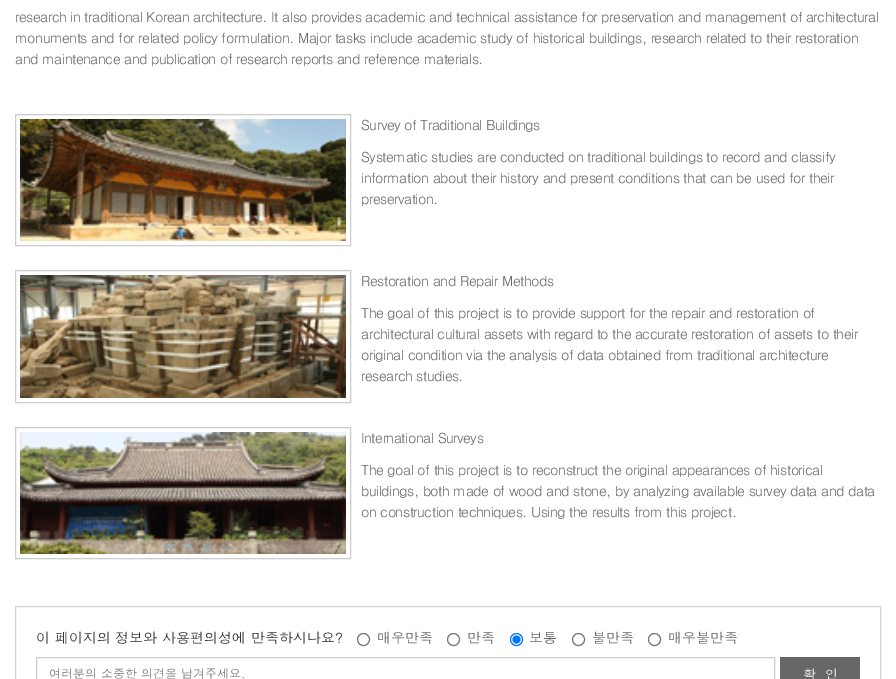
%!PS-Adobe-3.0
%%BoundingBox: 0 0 896 679
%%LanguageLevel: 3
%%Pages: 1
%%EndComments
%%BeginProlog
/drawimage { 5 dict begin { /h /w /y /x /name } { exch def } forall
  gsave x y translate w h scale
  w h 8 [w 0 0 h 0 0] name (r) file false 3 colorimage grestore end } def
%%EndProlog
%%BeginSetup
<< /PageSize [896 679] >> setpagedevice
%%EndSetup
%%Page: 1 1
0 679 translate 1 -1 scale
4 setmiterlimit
1 setgray
0 0 896 679 rectfill
0.8 setgray
15.5 114.5 335 131 rectstroke
(images/1.raw) 20 119 326 122 drawimage
15.5 270.5 335 132 rectstroke
(images/2.raw) 20 275 326 123 drawimage
15.5 427.5 335 131 rectstroke
(images/3.raw) 20 432 326 122 drawimage
0.824 setgray
15.5 606.5 865 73 rectstroke
0.463 setgray
newpath 363.5 639.5 6 0 360 arc closepath stroke
newpath 453.5 639.5 6 0 360 arc closepath stroke
0 0.459 1 setrgbcolor
newpath 516.5 639.5 6 0 360 arc closepath stroke
newpath 516.5 639.5 4 0 360 arc closepath fill
0.463 setgray
newpath 578.5 639.5 6 0 360 arc closepath stroke
newpath 654.5 639.5 6 0 360 arc closepath stroke
0.8 setgray
36.5 657.5 738 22 rectstroke
0.4 setgray
780 657 80 22 rectfill
/Dotum-Regular [14 0 0 -14 0 0] selectfont
15 22 moveto -0.56 0 (research in traditional Korean architecture. It also provides academic and technical assistance for preservation and management of architectural) ashow
15 43 moveto -0.56 0 (monuments and for related policy formulation. Major tasks include academic study of historical buildings, research related to their restoration) ashow
15 64 moveto -0.56 0 (and maintenance and publication of research reports and reference materials.) ashow
361 130 moveto -0.56 0 (Survey of Traditional Buildings) ashow
361 162 moveto -0.56 0 (Systematic studies are conducted on traditional buildings to record and classify) ashow
361 183 moveto -0.56 0 (information about their history and present conditions that can be used for their) ashow
361 204 moveto -0.56 0 (preservation.) ashow
361 286 moveto -0.56 0 (Restoration and Repair Methods) ashow
361 318 moveto -0.56 0 (The goal of this project is to provide support for the repair and restoration of) ashow
361 339 moveto -0.56 0 (architectural cultural assets with regard to the accurate restoration of assets to their) ashow
361 360 moveto -0.56 0 (original condition via the analysis of data obtained from traditional architecture) ashow
361 381 moveto -0.56 0 (research studies.) ashow
361 443 moveto -0.56 0 (International Surveys) ashow
361 475 moveto -0.56 0 (The goal of this project is to reconstruct the original appearances of historical) ashow
361 496 moveto -0.56 0 (buildings, both made of wood and stone, by analyzing available survey data and data) ashow
361 517 moveto -0.56 0 (on construction techniques. Using the results from this project.) ashow
0.2 setgray
36 643 moveto (이 페이지의 정보와 사용편의성에 만족하시나요?) show
0.4 setgray
377 643 moveto (매우만족) show
467 643 moveto (만족) show
529 643 moveto (보통) show
592 643 moveto (불만족) show
668 643 moveto (매우불만족) show
/Dotum-Regular [12 0 0 -12 0 0] selectfont
0.459 setgray
49 678 moveto (여러분의 소중한 의견을 남겨주세요.) show
/Dotum-Regular [13 0 0 -13 0 0] selectfont
1 setgray
803 679 moveto (확  인) show
showpage
%%EOF
